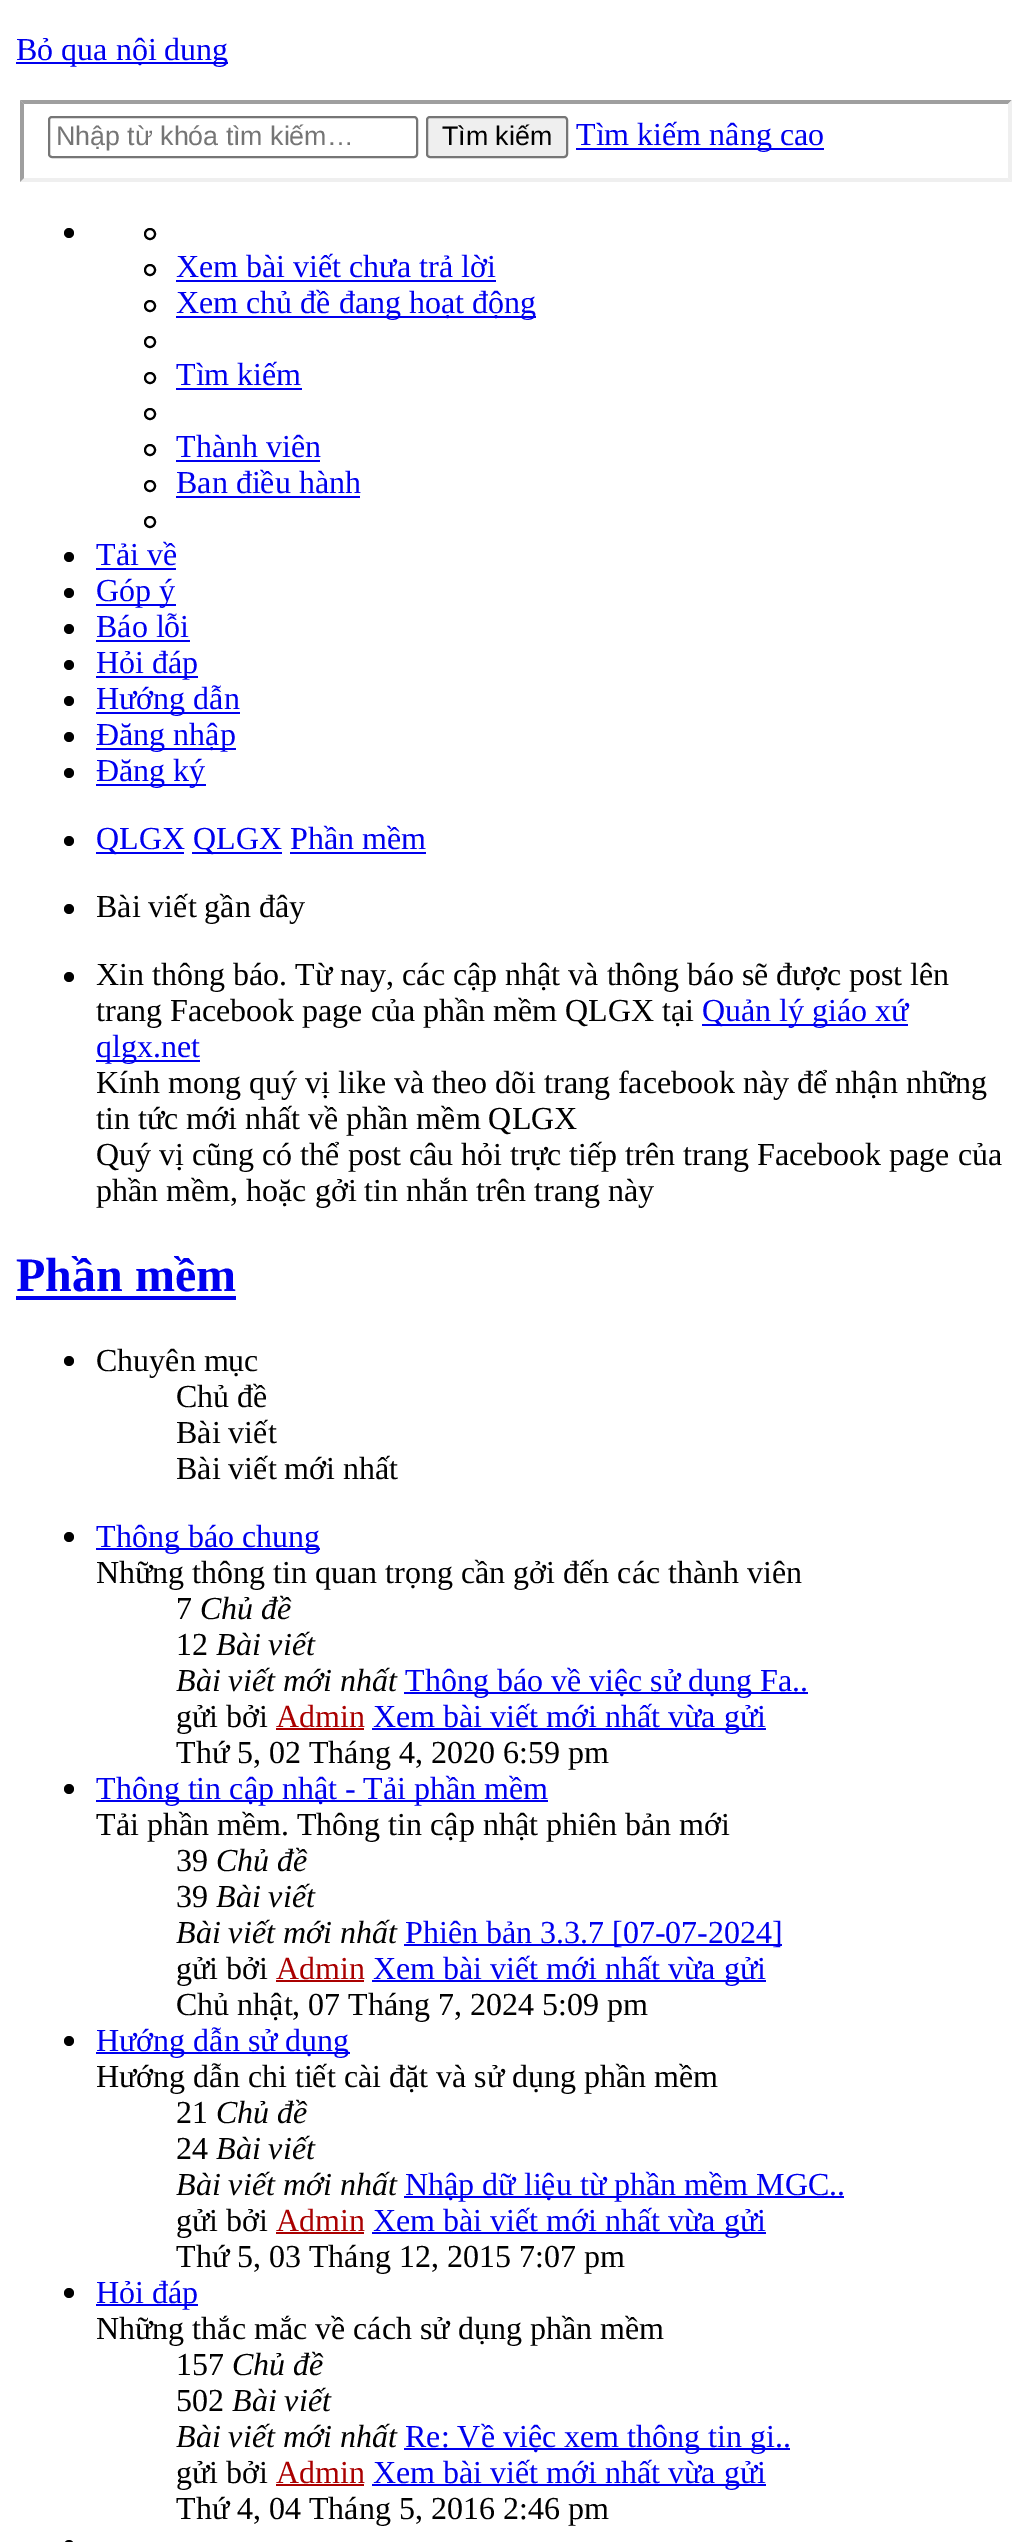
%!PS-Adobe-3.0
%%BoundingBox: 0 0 1032 2542
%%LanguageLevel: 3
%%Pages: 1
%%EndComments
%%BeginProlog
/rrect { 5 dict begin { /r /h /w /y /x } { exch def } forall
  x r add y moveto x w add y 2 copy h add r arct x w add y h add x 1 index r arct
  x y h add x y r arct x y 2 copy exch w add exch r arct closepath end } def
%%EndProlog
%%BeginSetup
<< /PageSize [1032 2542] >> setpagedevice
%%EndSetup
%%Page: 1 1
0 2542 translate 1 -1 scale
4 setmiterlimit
1 setgray
0 0 1032 2542 rectfill
0 0 0.933 setrgbcolor
16 62 212 2 rectfill
0.624 setgray
newpath 20 100 moveto 1012 100 lineto 1008 104 lineto 24 104 lineto closepath fill
0.937 setgray
newpath 1012 100 moveto 1012 182 lineto 1008 178 lineto 1008 104 lineto closepath fill
newpath 1012 182 moveto 20 182 lineto 24 178 lineto 1008 178 lineto closepath fill
0.624 setgray
newpath 20 182 moveto 20 100 lineto 24 104 lineto 24 178 lineto closepath fill
0.463 setgray
2 setlinewidth
49 117 368 40 3 rrect stroke
0.937 setgray
427 117 140 40 3 rrect gsave fill grestore
0.463 setgray
stroke
0 0 0.933 setrgbcolor
576 148 248 2 rectfill
0 setgray
newpath 69 233 5 0 360 arc closepath fill
newpath 150 234 5 0 360 arc closepath stroke
newpath 150 270 5 0 360 arc closepath stroke
0 0 0.933 setrgbcolor
176 280 320 2 rectfill
0 setgray
newpath 150 306 5 0 360 arc closepath stroke
0 0 0.933 setrgbcolor
176 316 360 2 rectfill
0 setgray
newpath 150 342 5 0 360 arc closepath stroke
newpath 150 378 5 0 360 arc closepath stroke
0 0 0.933 setrgbcolor
176 388 126 2 rectfill
0 setgray
newpath 150 414 5 0 360 arc closepath stroke
newpath 150 450 5 0 360 arc closepath stroke
0 0 0.933 setrgbcolor
176 460 144 2 rectfill
0 setgray
newpath 150 486 5 0 360 arc closepath stroke
0 0 0.933 setrgbcolor
176 496 184 2 rectfill
0 setgray
newpath 150 522 5 0 360 arc closepath stroke
newpath 69 557 5 0 360 arc closepath fill
0 0 0.933 setrgbcolor
96 568 80 2 rectfill
0 setgray
newpath 69 593 5 0 360 arc closepath fill
0 0 0.933 setrgbcolor
96 604 80 2 rectfill
0 setgray
newpath 69 629 5 0 360 arc closepath fill
0 0 0.933 setrgbcolor
96 640 94 2 rectfill
0 setgray
newpath 69 665 5 0 360 arc closepath fill
0 0 0.933 setrgbcolor
96 676 102 2 rectfill
0 setgray
newpath 69 701 5 0 360 arc closepath fill
0 0 0.933 setrgbcolor
96 712 144 2 rectfill
0 setgray
newpath 69 737 5 0 360 arc closepath fill
0 0 0.933 setrgbcolor
96 748 140 2 rectfill
0 setgray
newpath 69 773 5 0 360 arc closepath fill
0 0 0.933 setrgbcolor
96 784 110 2 rectfill
0 setgray
newpath 69 841 5 0 360 arc closepath fill
0 0 0.933 setrgbcolor
96 852 88 2 rectfill
192 852 90 2 rectfill
290 852 136 2 rectfill
0 setgray
newpath 69 909 5 0 360 arc closepath fill
newpath 69 977 5 0 360 arc closepath fill
0 0 0.933 setrgbcolor
702 1024 206 2 rectfill
96 1060 104 2 rectfill
16 1296 220 4 rectfill
0 setgray
newpath 69 1361 5 0 360 arc closepath fill
newpath 69 1537 5 0 360 arc closepath fill
0 0 0.933 setrgbcolor
96 1548 224 2 rectfill
404 1692 404 2 rectfill
0.667 0 0 setrgbcolor
276 1728 88 2 rectfill
0 0 0.933 setrgbcolor
372 1728 394 2 rectfill
0 setgray
newpath 69 1789 5 0 360 arc closepath fill
0 0 0.933 setrgbcolor
96 1800 452 2 rectfill
404 1944 378 2 rectfill
0.667 0 0 setrgbcolor
276 1980 88 2 rectfill
0 0 0.933 setrgbcolor
372 1980 394 2 rectfill
0 setgray
newpath 69 2041 5 0 360 arc closepath fill
0 0 0.933 setrgbcolor
96 2052 254 2 rectfill
404 2196 440 2 rectfill
0.667 0 0 setrgbcolor
276 2232 88 2 rectfill
0 0 0.933 setrgbcolor
372 2232 394 2 rectfill
0 setgray
newpath 69 2293 5 0 360 arc closepath fill
0 0 0.933 setrgbcolor
96 2304 102 2 rectfill
404 2448 386 2 rectfill
0.667 0 0 setrgbcolor
276 2484 88 2 rectfill
0 0 0.933 setrgbcolor
372 2484 394 2 rectfill
0 setgray
64 2540 10 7 5 rrect fill
/LiberationSerif-Regular [32 0 0 -32 0 0] selectfont
0 0 0.933 setrgbcolor
16 60 moveto (Bỏ qua nội dung) show
/LiberationSans-Regular [26.75 0 0 -26.75 0 0] selectfont
0.459 setgray
56 145 moveto (Nhập từ khóa tìm kiếm…) show
0 setgray
442 145 moveto (Tìm kiếm) show
/LiberationSerif-Regular [32 0 0 -32 0 0] selectfont
0 0 0.933 setrgbcolor
576 145 moveto (Tìm kiếm nâng cao) show
176 277 moveto (Xem bài viết chưa trả lời) show
176 313 moveto (Xem chủ đề đang hoạt động) show
176 385 moveto (Tìm kiếm) show
176 457 moveto (Thành viên) show
176 493 moveto (Ban điều hành) show
96 565 moveto (Tải về) show
96 601 moveto (Góp ý) show
96 637 moveto (Báo lỗi) show
96 673 moveto (Hỏi đáp) show
96 709 moveto (Hướng dẫn) show
96 745 moveto (Đăng nhập) show
96 781 moveto (Đăng ký) show
96 849 moveto (QLGX) show
193 849 moveto (QLGX Phần mềm) show
0 setgray
96 917 moveto (Bài viết gần đây) show
96 985 moveto (Xin thông báo. Từ nay, các cập nhật và thông báo sẽ được post lên) show
96 1021 moveto (trang Facebook page của phần mềm QLGX tại) show
0 0 0.933 setrgbcolor
702 1021 moveto (Quản lý giáo xứ) show
96 1057 moveto (qlgx.net) show
0 setgray
96 1093 moveto (Kính mong quý vị like và theo dõi trang facebook này để nhận những) show
96 1129 moveto (tin tức mới nhất về phần mềm QLGX) show
96 1165 moveto (Quý vị cũng có thể post câu hỏi trực tiếp trên trang Facebook page của) show
96 1201 moveto (phần mềm, hoặc gởi tin nhắn trên trang này) show
/LiberationSerif-Bold [48 0 0 -48 0 0] selectfont
0 0 0.933 setrgbcolor
16 1291 moveto (Phần mềm) show
/LiberationSerif-Regular [32 0 0 -32 0 0] selectfont
0 setgray
96 1371 moveto (Chuyên mục) show
176 1407 moveto (Chủ đề) show
176 1443 moveto (Bài viết) show
176 1479 moveto (Bài viết mới nhất) show
0 0 0.933 setrgbcolor
96 1547 moveto (Thông báo chung) show
0 setgray
96 1583 moveto (Những thông tin quan trọng cần gởi đến các thành viên) show
176 1619 moveto (7) show
/LiberationSerif-Italic [32 0 0 -32 0 0] selectfont
200 1619 moveto (Chủ đề) show
/LiberationSerif-Regular [32 0 0 -32 0 0] selectfont
176 1655 moveto (12) show
/LiberationSerif-Italic [32 0 0 -32 0 0] selectfont
216 1655 moveto (Bài viết) show
176 1691 moveto (Bài viết mới nhất) show
/LiberationSerif-Regular [32 0 0 -32 0 0] selectfont
0 0 0.933 setrgbcolor
405 1691 moveto (Thông báo về việc sử dụng Fa..) show
0 setgray
176 1727 moveto (gửi bởi) show
0.667 0 0 setrgbcolor
276 1727 moveto (Admin) show
0 0 0.933 setrgbcolor
373 1727 moveto (Xem bài viết mới nhất vừa gửi) show
0 setgray
176 1763 moveto (Thứ 5, 02 Tháng 4, 2020 6:59 pm) show
0 0 0.933 setrgbcolor
96 1799 moveto (Thông tin cập nhật - Tải phần mềm) show
0 setgray
96 1835 moveto (Tải phần mềm. Thông tin cập nhật phiên bản mới) show
176 1871 moveto (39) show
/LiberationSerif-Italic [32 0 0 -32 0 0] selectfont
216 1871 moveto (Chủ đề) show
/LiberationSerif-Regular [32 0 0 -32 0 0] selectfont
176 1907 moveto (39) show
/LiberationSerif-Italic [32 0 0 -32 0 0] selectfont
216 1907 moveto (Bài viết) show
176 1943 moveto (Bài viết mới nhất) show
/LiberationSerif-Regular [32 0 0 -32 0 0] selectfont
0 0 0.933 setrgbcolor
405 1943 moveto (Phiên bản 3.3.7 [07-07-2024]) show
0 setgray
176 1979 moveto (gửi bởi) show
0.667 0 0 setrgbcolor
276 1979 moveto (Admin) show
0 0 0.933 setrgbcolor
373 1979 moveto (Xem bài viết mới nhất vừa gửi) show
0 setgray
176 2015 moveto (Chủ nhật, 07 Tháng 7, 2024 5:09 pm) show
0 0 0.933 setrgbcolor
96 2051 moveto (Hướng dẫn sử dụng) show
0 setgray
96 2087 moveto (Hướng dẫn chi tiết cài đặt và sử dụng phần mềm) show
176 2123 moveto (21) show
/LiberationSerif-Italic [32 0 0 -32 0 0] selectfont
216 2123 moveto (Chủ đề) show
/LiberationSerif-Regular [32 0 0 -32 0 0] selectfont
176 2159 moveto (24) show
/LiberationSerif-Italic [32 0 0 -32 0 0] selectfont
216 2159 moveto (Bài viết) show
176 2195 moveto (Bài viết mới nhất) show
/LiberationSerif-Regular [32 0 0 -32 0 0] selectfont
0 0 0.933 setrgbcolor
405 2195 moveto (Nhập dữ liệu từ phần mềm MGC..) show
0 setgray
176 2231 moveto (gửi bởi) show
0.667 0 0 setrgbcolor
276 2231 moveto (Admin) show
0 0 0.933 setrgbcolor
373 2231 moveto (Xem bài viết mới nhất vừa gửi) show
0 setgray
176 2267 moveto (Thứ 5, 03 Tháng 12, 2015 7:07 pm) show
0 0 0.933 setrgbcolor
96 2303 moveto (Hỏi đáp) show
0 setgray
96 2339 moveto (Những thắc mắc về cách sử dụng phần mềm) show
176 2375 moveto (157) show
/LiberationSerif-Italic [32 0 0 -32 0 0] selectfont
232 2375 moveto (Chủ đề) show
/LiberationSerif-Regular [32 0 0 -32 0 0] selectfont
176 2411 moveto (502) show
/LiberationSerif-Italic [32 0 0 -32 0 0] selectfont
232 2411 moveto (Bài viết) show
176 2447 moveto (Bài viết mới nhất) show
/LiberationSerif-Regular [32 0 0 -32 0 0] selectfont
0 0 0.933 setrgbcolor
405 2447 moveto (Re: Về việc xem thông tin gi..) show
0 setgray
176 2483 moveto (gửi bởi) show
0.667 0 0 setrgbcolor
276 2483 moveto (Admin) show
0 0 0.933 setrgbcolor
373 2483 moveto (Xem bài viết mới nhất vừa gửi) show
0 setgray
176 2519 moveto (Thứ 4, 04 Tháng 5, 2016 2:46 pm) show
showpage
%%EOF
